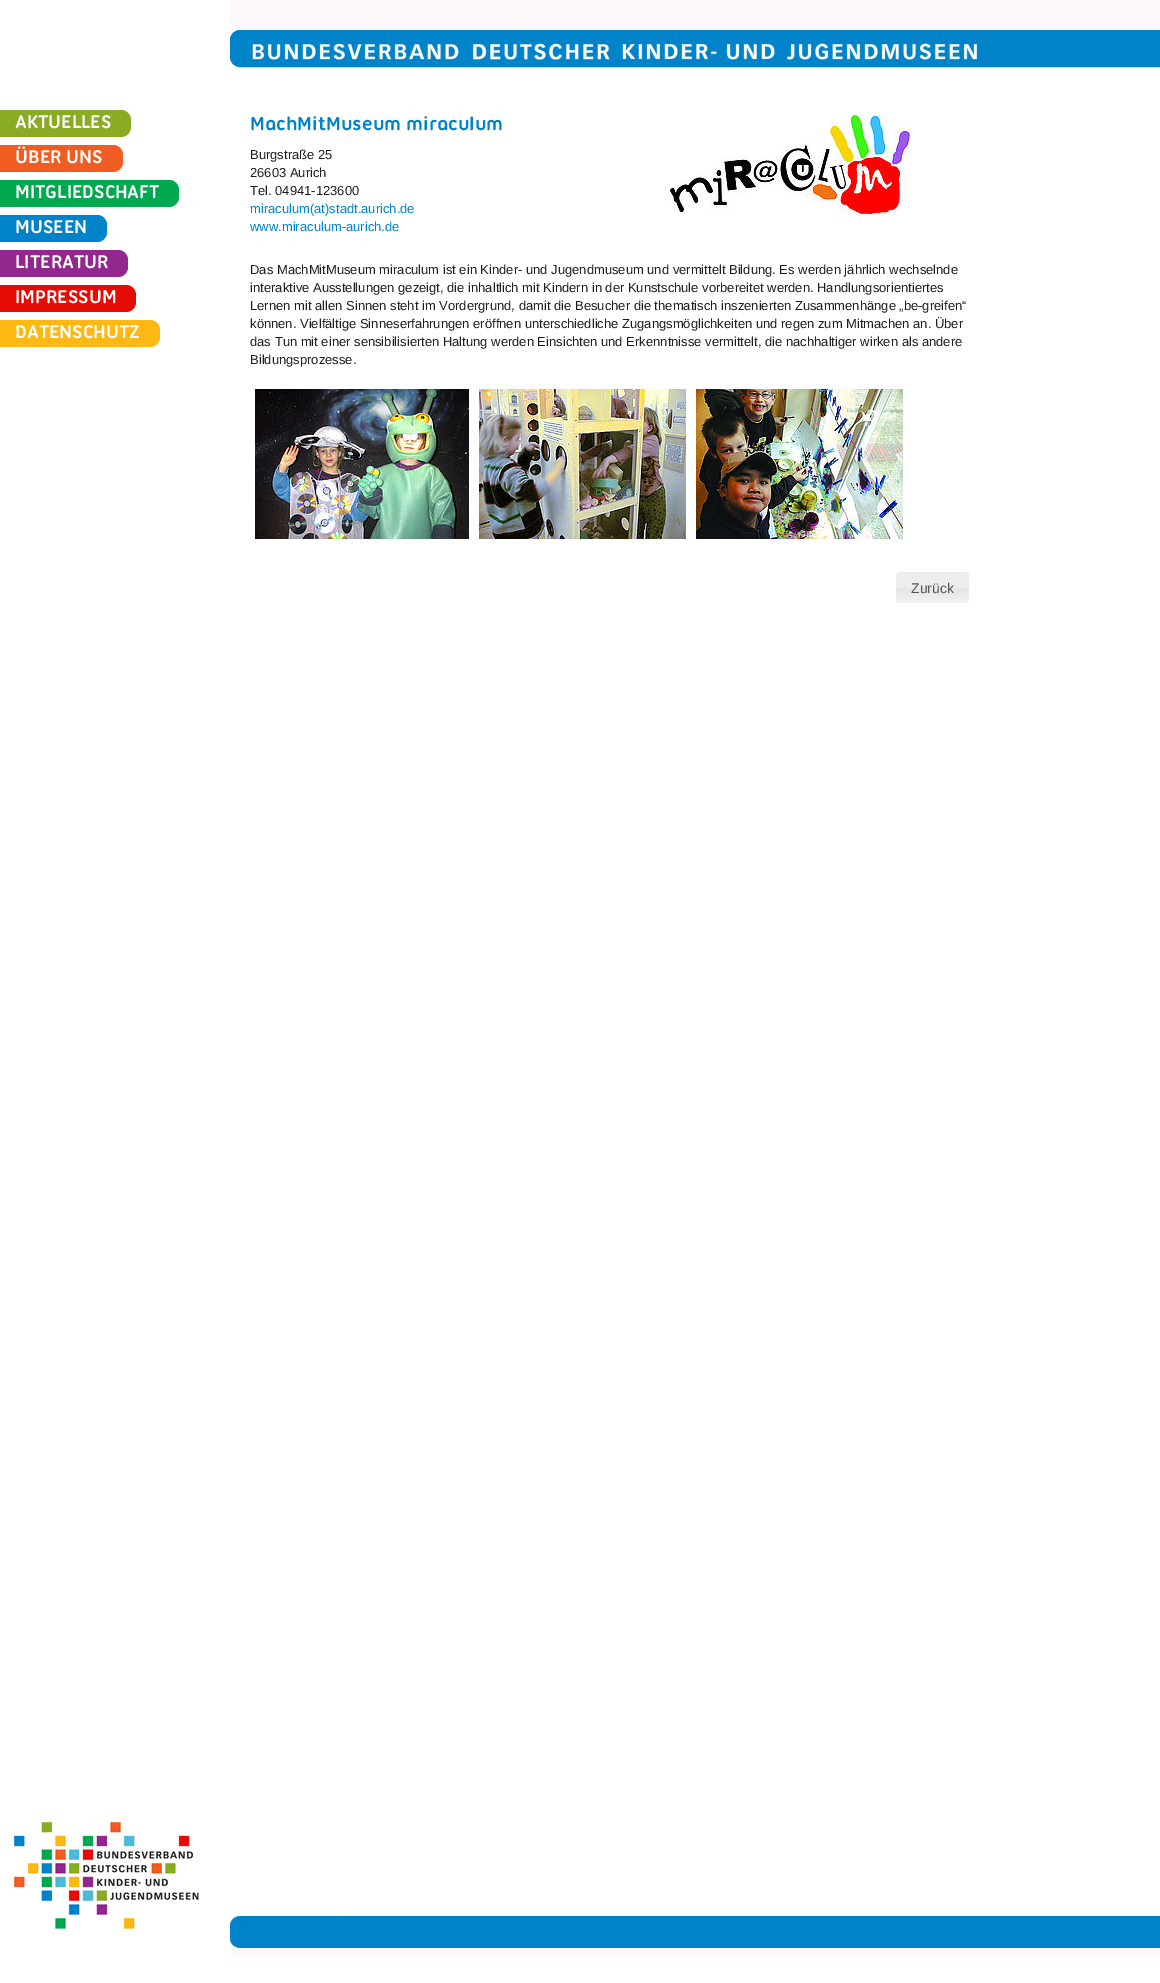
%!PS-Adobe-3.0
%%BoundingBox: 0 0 1160 1983
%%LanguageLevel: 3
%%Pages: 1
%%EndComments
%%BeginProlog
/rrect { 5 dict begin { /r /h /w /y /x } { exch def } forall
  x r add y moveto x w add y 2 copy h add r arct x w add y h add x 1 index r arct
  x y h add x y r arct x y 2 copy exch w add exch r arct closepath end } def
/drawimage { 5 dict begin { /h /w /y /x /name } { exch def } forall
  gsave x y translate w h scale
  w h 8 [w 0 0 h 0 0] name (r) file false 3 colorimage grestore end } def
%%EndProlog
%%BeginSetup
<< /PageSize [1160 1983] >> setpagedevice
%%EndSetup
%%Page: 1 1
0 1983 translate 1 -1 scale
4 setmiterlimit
1 setgray
0 0 1160 1983 rectfill
0.992 0.976 0.98 setrgbcolor
230 0 930 30 rectfill
0 0.514 0.788 setrgbcolor
230.5 30.5 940 36 9.5 rrect gsave fill grestore
stroke
(images/1.raw) 252 43 726 17 drawimage
0.541 0.671 0.141 setrgbcolor
-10 110 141 27 10 rrect fill
0.945 0.361 0.133 setrgbcolor
-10 145 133 27 10 rrect fill
0 0.663 0.314 setrgbcolor
-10 180 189 27 10 rrect fill
0 0.514 0.788 setrgbcolor
-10 215 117 27 10 rrect fill
0.576 0.153 0.561 setrgbcolor
-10 250 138 27 10 rrect fill
0.898 0.047 0.024 setrgbcolor
-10 285 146 27 10 rrect fill
0.992 0.722 0.075 setrgbcolor
-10 320 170 27 10 rrect fill
(images/2.raw) 670 115 240 100 drawimage
(images/3.raw) 255 389 214 150 drawimage
(images/4.raw) 479 389 207 150 drawimage
(images/5.raw) 696 389 207 150 drawimage
(images/6.raw) 896 572 73 31 drawimage
(images/7.raw) 13 1822 186 107 drawimage
(images/8.raw) 230 1916 930 32 drawimage
0.992 0.976 0.98 setrgbcolor
230 1948 930 10 rectfill
/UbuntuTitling-Bold [20 0 0 -20 0 0] selectfont
1 setgray
15 128 moveto (AKTUELLES) show
15 163 moveto (ÜBER UNS) show
15 198 moveto (MITGLIEDSCHAFT) show
15 233 moveto (MUSEEN) show
15 268 moveto (LITERATUR) show
15 303 moveto (IMPRESSUM) show
15 338 moveto (DATENSCHUTZ) show
0 0.514 0.788 setrgbcolor
250 130 moveto (MachMitMuseum miraculum) show
/LiberationSans-Regular [13 0 0 -13 0 0] selectfont
0.122 0.114 0.114 setrgbcolor
250 159 moveto (Burgstraße 25) show
250 177 moveto (26603 Aurich) show
250 195 moveto (Tel. 04941-123600) show
0 0.514 0.788 setrgbcolor
250 213 moveto (miraculum\(at\)stadt.aurich.de) show
250 231 moveto (www.miraculum-aurich.de) show
0.122 0.114 0.114 setrgbcolor
250 274 moveto (Das MachMitMuseum miraculum ist ein Kinder- und Jugendmuseum und vermittelt Bildung. Es werden jährlich wechselnde) show
250 292 moveto (interaktive Ausstellungen gezeigt, die inhaltlich mit Kindern in der Kunstschule vorbereitet werden. Handlungsorientiertes) show
250 310 moveto (Lernen mit allen Sinnen steht im Vordergrund, damit die Besucher die thematisch inszenierten Zusammenhänge „be-greifen“) show
250 328 moveto (können. Vielfältige Sinneserfahrungen eröffnen unterschiedliche Zugangsmöglichkeiten und regen zum Mitmachen an. Über) show
250 346 moveto (das Tun mit einer sensibilisierten Haltung werden Einsichten und Erkenntnisse vermittelt, die nachhaltiger wirken als andere) show
250 364 moveto (Bildungsprozesse.) show
/LiberationSans-Regular [14 0 0 -14 0 0] selectfont
0.333 setgray
911 593 moveto (Zurück) show
showpage
%%EOF
